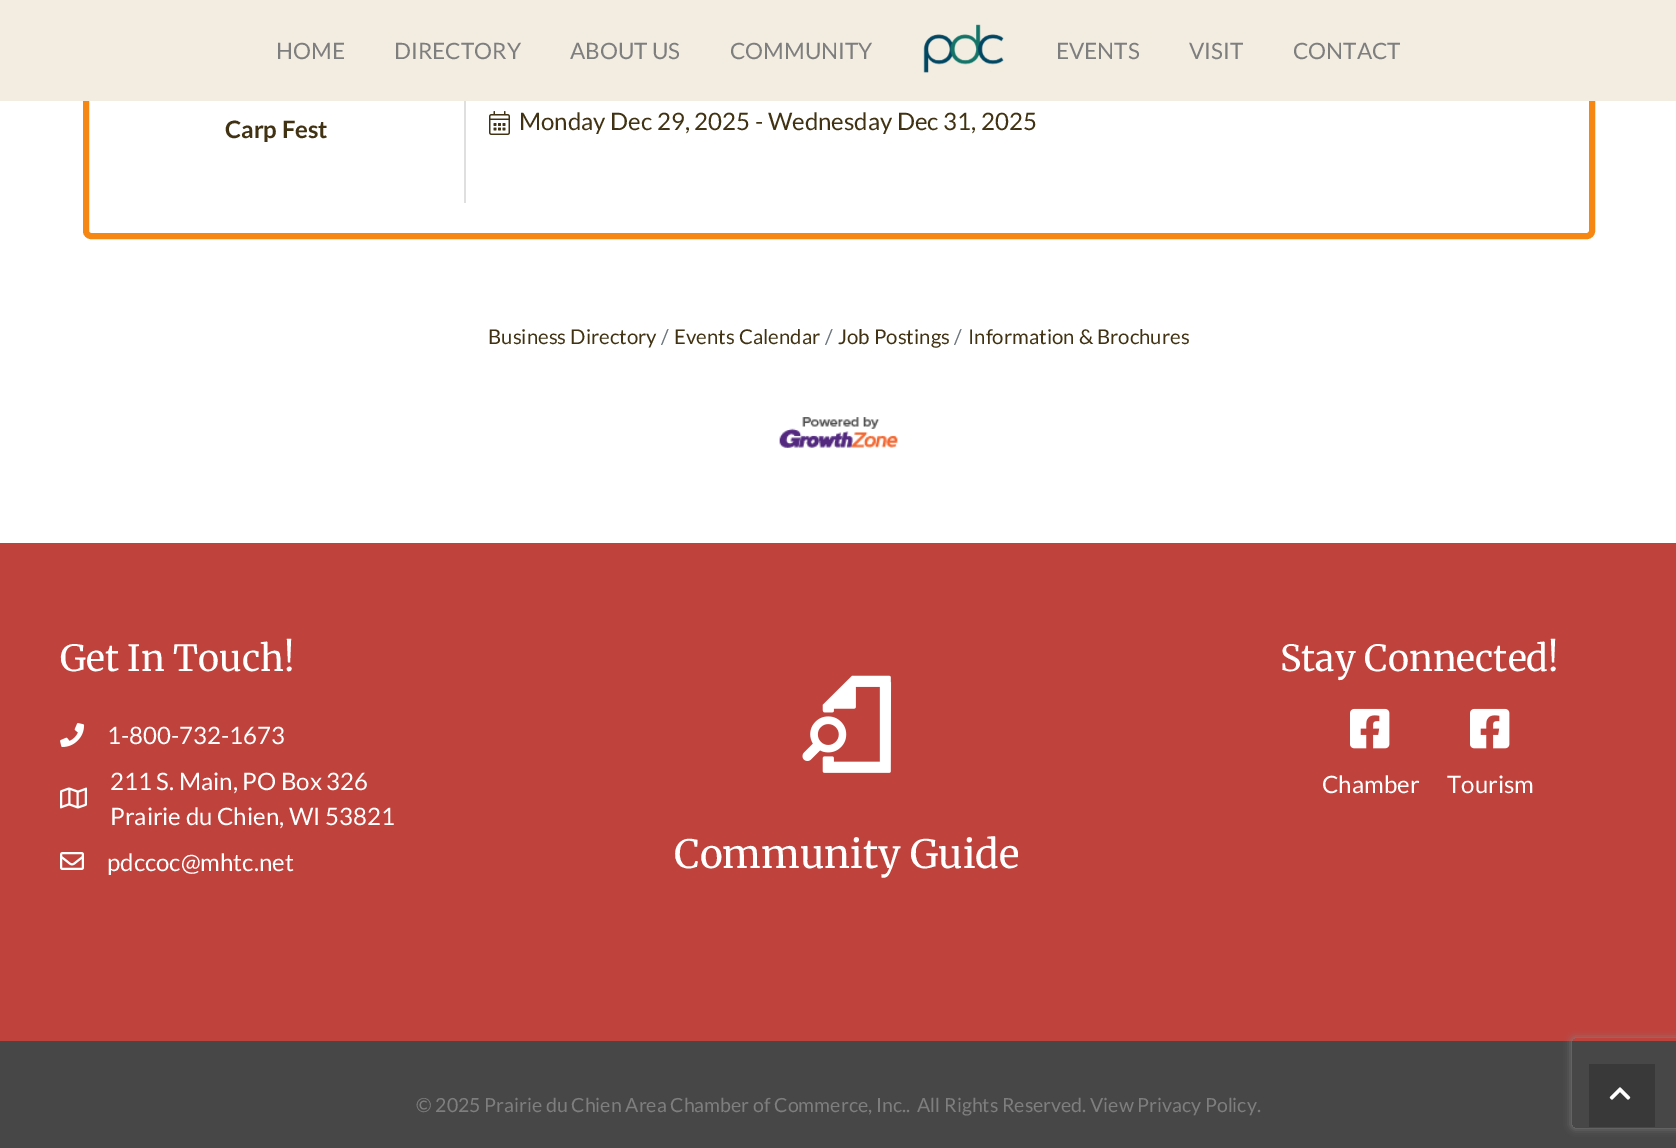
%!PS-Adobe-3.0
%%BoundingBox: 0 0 1676 1148
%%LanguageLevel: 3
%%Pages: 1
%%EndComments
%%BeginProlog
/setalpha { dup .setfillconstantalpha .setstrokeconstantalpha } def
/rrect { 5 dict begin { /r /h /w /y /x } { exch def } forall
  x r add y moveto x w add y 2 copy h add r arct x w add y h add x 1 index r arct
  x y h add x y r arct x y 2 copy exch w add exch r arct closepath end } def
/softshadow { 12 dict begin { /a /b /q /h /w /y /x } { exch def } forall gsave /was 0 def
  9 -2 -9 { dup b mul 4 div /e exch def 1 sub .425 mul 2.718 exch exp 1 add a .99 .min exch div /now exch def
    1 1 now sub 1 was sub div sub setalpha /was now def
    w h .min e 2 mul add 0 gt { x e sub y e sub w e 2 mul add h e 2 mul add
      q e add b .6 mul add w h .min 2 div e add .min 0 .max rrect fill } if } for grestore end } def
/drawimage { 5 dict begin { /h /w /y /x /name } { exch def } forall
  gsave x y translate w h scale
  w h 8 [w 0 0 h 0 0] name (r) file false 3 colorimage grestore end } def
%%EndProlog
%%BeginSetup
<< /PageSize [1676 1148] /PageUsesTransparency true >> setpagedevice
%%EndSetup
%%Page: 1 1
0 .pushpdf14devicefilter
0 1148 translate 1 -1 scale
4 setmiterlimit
1 setgray
0 0 1676 1148 rectfill
0.965 0.529 0.071 setrgbcolor
6 setlinewidth
86 21 1506 215 5 rrect stroke
0.949 0.925 0.882 setrgbcolor
0 0 1676 101 rectfill
(images/1.raw) 923 24 81 49 drawimage
0.875 setgray
464 101 2 102 rectfill
(images/2.raw) 489 111 21 24 drawimage
(images/3.raw) 779 417 119 31 drawimage
0.749 0.259 0.235 setrgbcolor
0 543 1676 498 rectfill
(images/4.raw) 60 723 25 24 drawimage
(images/5.raw) 60 787 27 22 drawimage
(images/6.raw) 60 852 24 18 drawimage
(images/7.raw) 1350 708 40 41 drawimage
(images/7.raw) 1470 708 40 41 drawimage
(images/8.raw) 802 675 90 98 drawimage
0.278 setgray
0 1041 1676 107 rectfill
gsave
newpath 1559 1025 moveto 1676 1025 lineto 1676 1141 lineto 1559 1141 lineto closepath 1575 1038 moveto 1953 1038 lineto 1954.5 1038 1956 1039.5 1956 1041 curveto 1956 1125 lineto 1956 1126.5 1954.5 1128 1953 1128 curveto 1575 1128 lineto 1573.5 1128 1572 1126.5 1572 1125 curveto 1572 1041 lineto 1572 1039.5 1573.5 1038 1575 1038 curveto closepath eoclip newpath
0.502 setgray
1572 1038 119 90 3 4 1 softshadow
grestore
0.224 setgray
1589 1064 66 63 rectfill
(images/9.raw) 1609 1087 22 13 drawimage
/Lato-Regular [22.5 0 0 -22.5 0 0] selectfont
0.494 setgray
276 59 moveto (HOME) show
394 59 moveto (DIRECTORY) show
570 59 moveto (ABOUT US) show
730 59 moveto (COMMUNITY) show
1056 59 moveto (EVENTS) show
1189 59 moveto (VISIT) show
1293 59 moveto (CONTACT) show
/Lato-Bold [24 0 0 -24 0 0] selectfont
0.251 0.196 0.071 setrgbcolor
225 138 moveto (Carp Fest) show
/Lato-Regular [24 0 0 -24 0 0] selectfont
519 130 moveto (Monday Dec 29, 2025 - Wednesday Dec 31, 2025) show
/Lato-Regular [20.4 0 0 -20.4 0 0] selectfont
488 344 moveto (Business Directory) show
0.424 0.459 0.49 setrgbcolor
661 344 moveto (/) show
0.251 0.196 0.071 setrgbcolor
674 344 moveto (Events Calendar) show
0.424 0.459 0.49 setrgbcolor
825 344 moveto (/) show
0.251 0.196 0.071 setrgbcolor
838 344 moveto (Job Postings) show
0.424 0.459 0.49 setrgbcolor
954 344 moveto (/) show
0.251 0.196 0.071 setrgbcolor
968 344 moveto (Information & Brochures) show
/Merriweather-Light [36 0 0 -36 0 0] selectfont
1 setgray
60 671 moveto (Get In Touch!) show
/Lato-Regular [24 0 0 -24 0 0] selectfont
107 744 moveto (1-800-732-1673) show
110 790 moveto (211 S. Main, PO Box 326) show
110 825 moveto (Prairie du Chien, WI 53821) show
107 871 moveto (pdccoc@mhtc.net) show
/Merriweather-Light [36 0 0 -36 0 0] selectfont
1280 671 moveto (Stay Connected!) show
/Lato-Regular [24 0 0 -24 0 0] selectfont
1322 793 moveto (Chamber) show
1447 793 moveto (Tourism) show
/Merriweather-Light [39 0 0 -39 0 0] selectfont
674 868 moveto (Community Guide) show
/Lato-Regular [19.5 0 0 -19.5 0 0] selectfont
0.494 setgray
416 1112 moveto (© 2025 Prairie du Chien Area Chamber of Commerce, Inc..) show
917 1112 moveto (All Rights Reserved. View Privacy Policy.) show
.poppdf14devicefilter showpage
%%EOF
